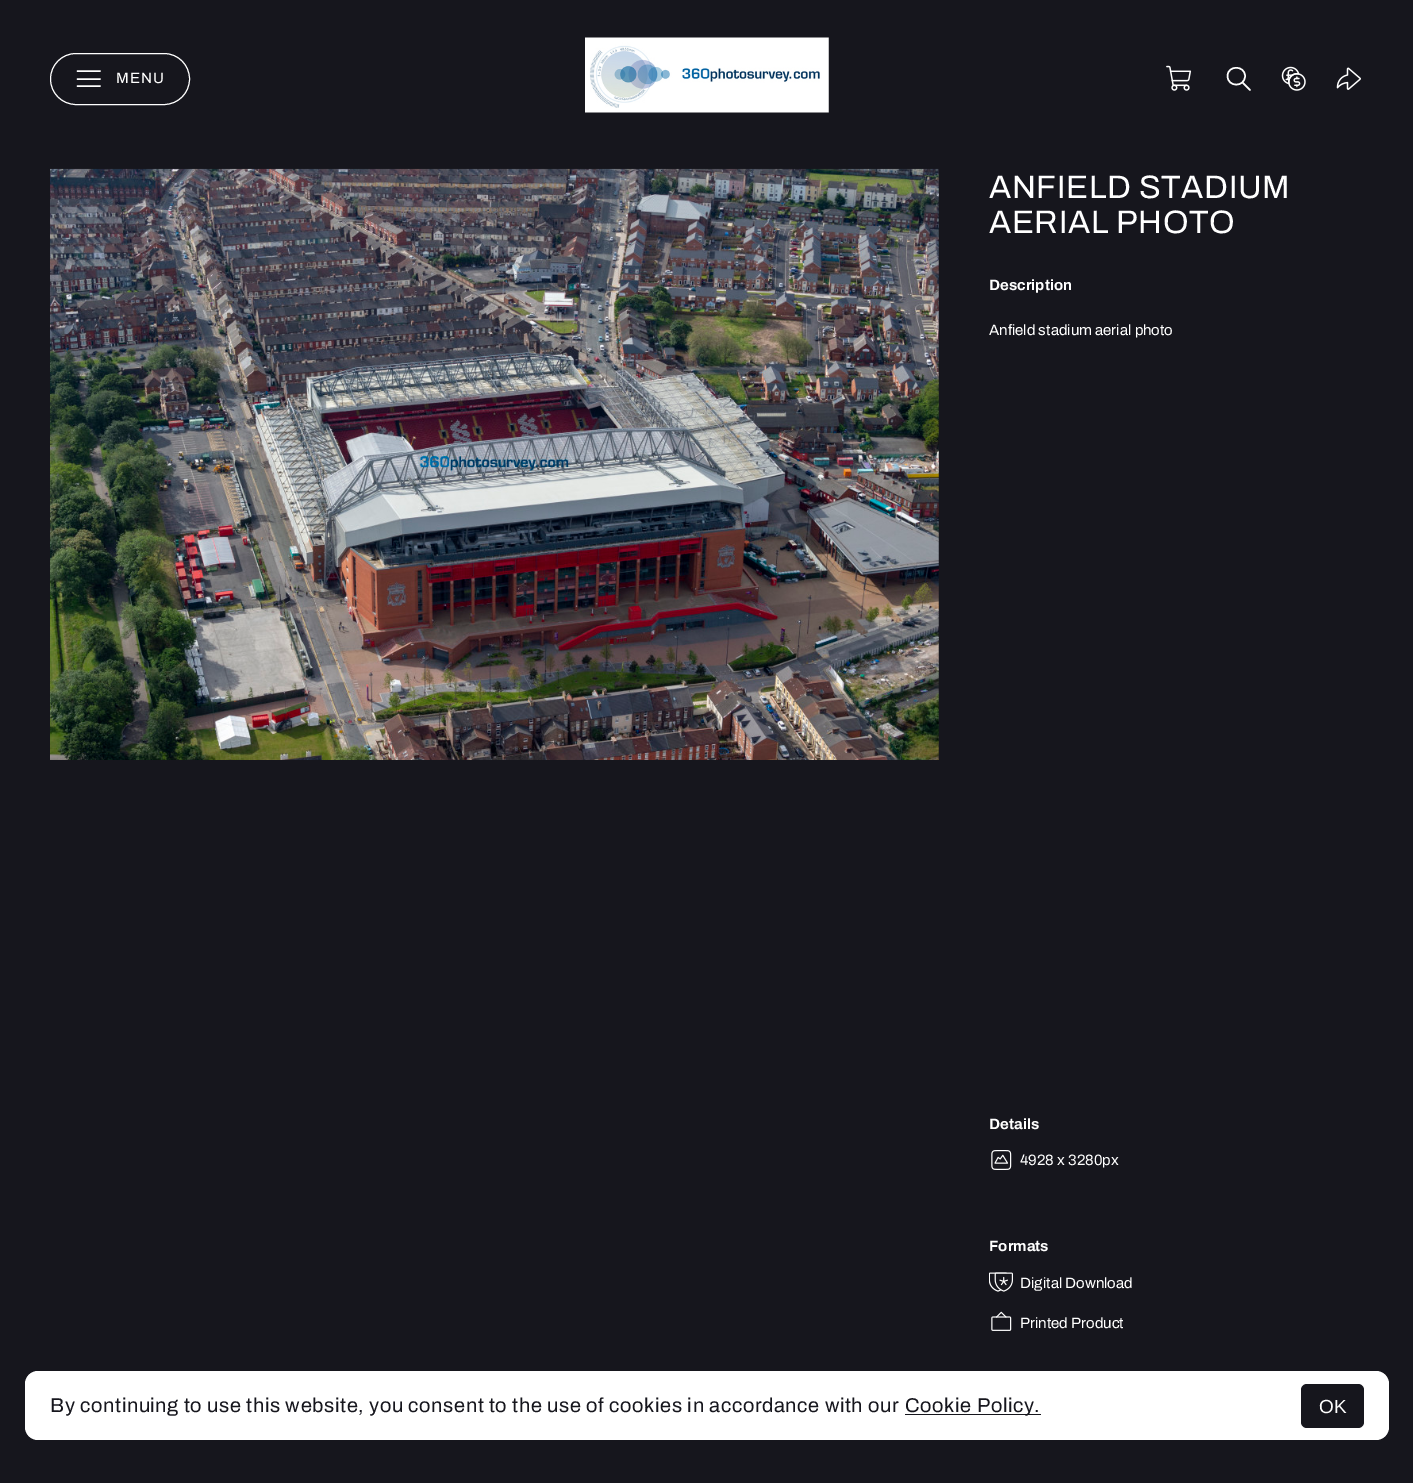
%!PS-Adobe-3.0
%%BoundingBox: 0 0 1413 1483
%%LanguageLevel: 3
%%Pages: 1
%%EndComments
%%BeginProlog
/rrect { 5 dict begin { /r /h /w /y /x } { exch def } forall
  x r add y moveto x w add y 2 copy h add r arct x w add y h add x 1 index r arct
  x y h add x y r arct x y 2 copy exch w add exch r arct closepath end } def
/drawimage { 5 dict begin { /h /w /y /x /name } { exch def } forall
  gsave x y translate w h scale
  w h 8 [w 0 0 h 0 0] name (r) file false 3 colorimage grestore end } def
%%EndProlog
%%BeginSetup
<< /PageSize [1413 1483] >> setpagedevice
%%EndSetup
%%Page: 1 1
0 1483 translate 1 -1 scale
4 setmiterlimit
0.086 0.086 0.114 setrgbcolor
0 0 1413 1483 rectfill
1 setgray
50.5 53.5 139 51 25.5 rrect stroke
1.5 setlinewidth
1 setlinecap
1 setlinejoin
newpath 77.5 79 moveto 100 79 lineto 77.5 71 moveto 100 71 lineto 77.5 86 moveto 100 86 lineto stroke
(images/1.raw) 585 37 244 76 drawimage
(images/2.raw) 1166 65 26 26 drawimage
newpath 1250 90 moveto 1242.5 82.5 lineto 1245 76 moveto 1245 87.5 1227.5 87.5 1227.5 76 curveto 1227.5 65 1245 65 1245 76 curveto closepath stroke
(images/3.raw) 1281 66 25 25 drawimage
(images/4.raw) 1336 67 25 23 drawimage
(images/5.raw) 50 168 889 592 drawimage
(images/6.raw) 991 1150 21 20 drawimage
(images/7.raw) 989 1272 24 20 drawimage
(images/8.raw) 991 1311 21 20 drawimage
25 1371 1364 69 13 rrect fill
0.086 0.086 0.114 setrgbcolor
905 1414 136 1 rectfill
1301 1384 63 44 6 rrect fill
/Archivo-Regular [15 0 0 -15 0 0] selectfont
1 setgray
116 83 moveto 1 0 (MENU) ashow
/Archivo-Regular [32.5 0 0 -32.5 0 0] selectfont
989 198 moveto 0.62 0 (ANFIELD STADIUM) ashow
989 233 moveto 0.62 0 (AERIAL PHOTO) ashow
/Archivo-Bold [15 0 0 -15 0 0] selectfont
989 290 moveto (Description) show
/Archivo-Regular [15 0 0 -15 0 0] selectfont
989 335 moveto (Anfield stadium aerial photo) show
/Archivo-Bold [15 0 0 -15 0 0] selectfont
989 1129 moveto (Details) show
/Archivo-Regular [15 0 0 -15 0 0] selectfont
1020 1165 moveto (4928 x 3280px) show
/Archivo-Bold [15 0 0 -15 0 0] selectfont
989 1251 moveto (Formats) show
/Archivo-Regular [15 0 0 -15 0 0] selectfont
1020 1288 moveto (Digital Download) show
1020 1328 moveto (Printed Product) show
/Archivo-Regular [20 0 0 -20 0 0] selectfont
0.086 0.086 0.114 setrgbcolor
50 1412 moveto 0.62 0 (By continuing to use this website, you consent to the use of cookies in accordance with our) ashow
905 1412 moveto 0.62 0 (Cookie Policy.) ashow
/LiberationSans-Regular [19 0 0 -19 0 0] selectfont
1 setgray
1319 1413 moveto (OK) show
showpage
%%EOF
